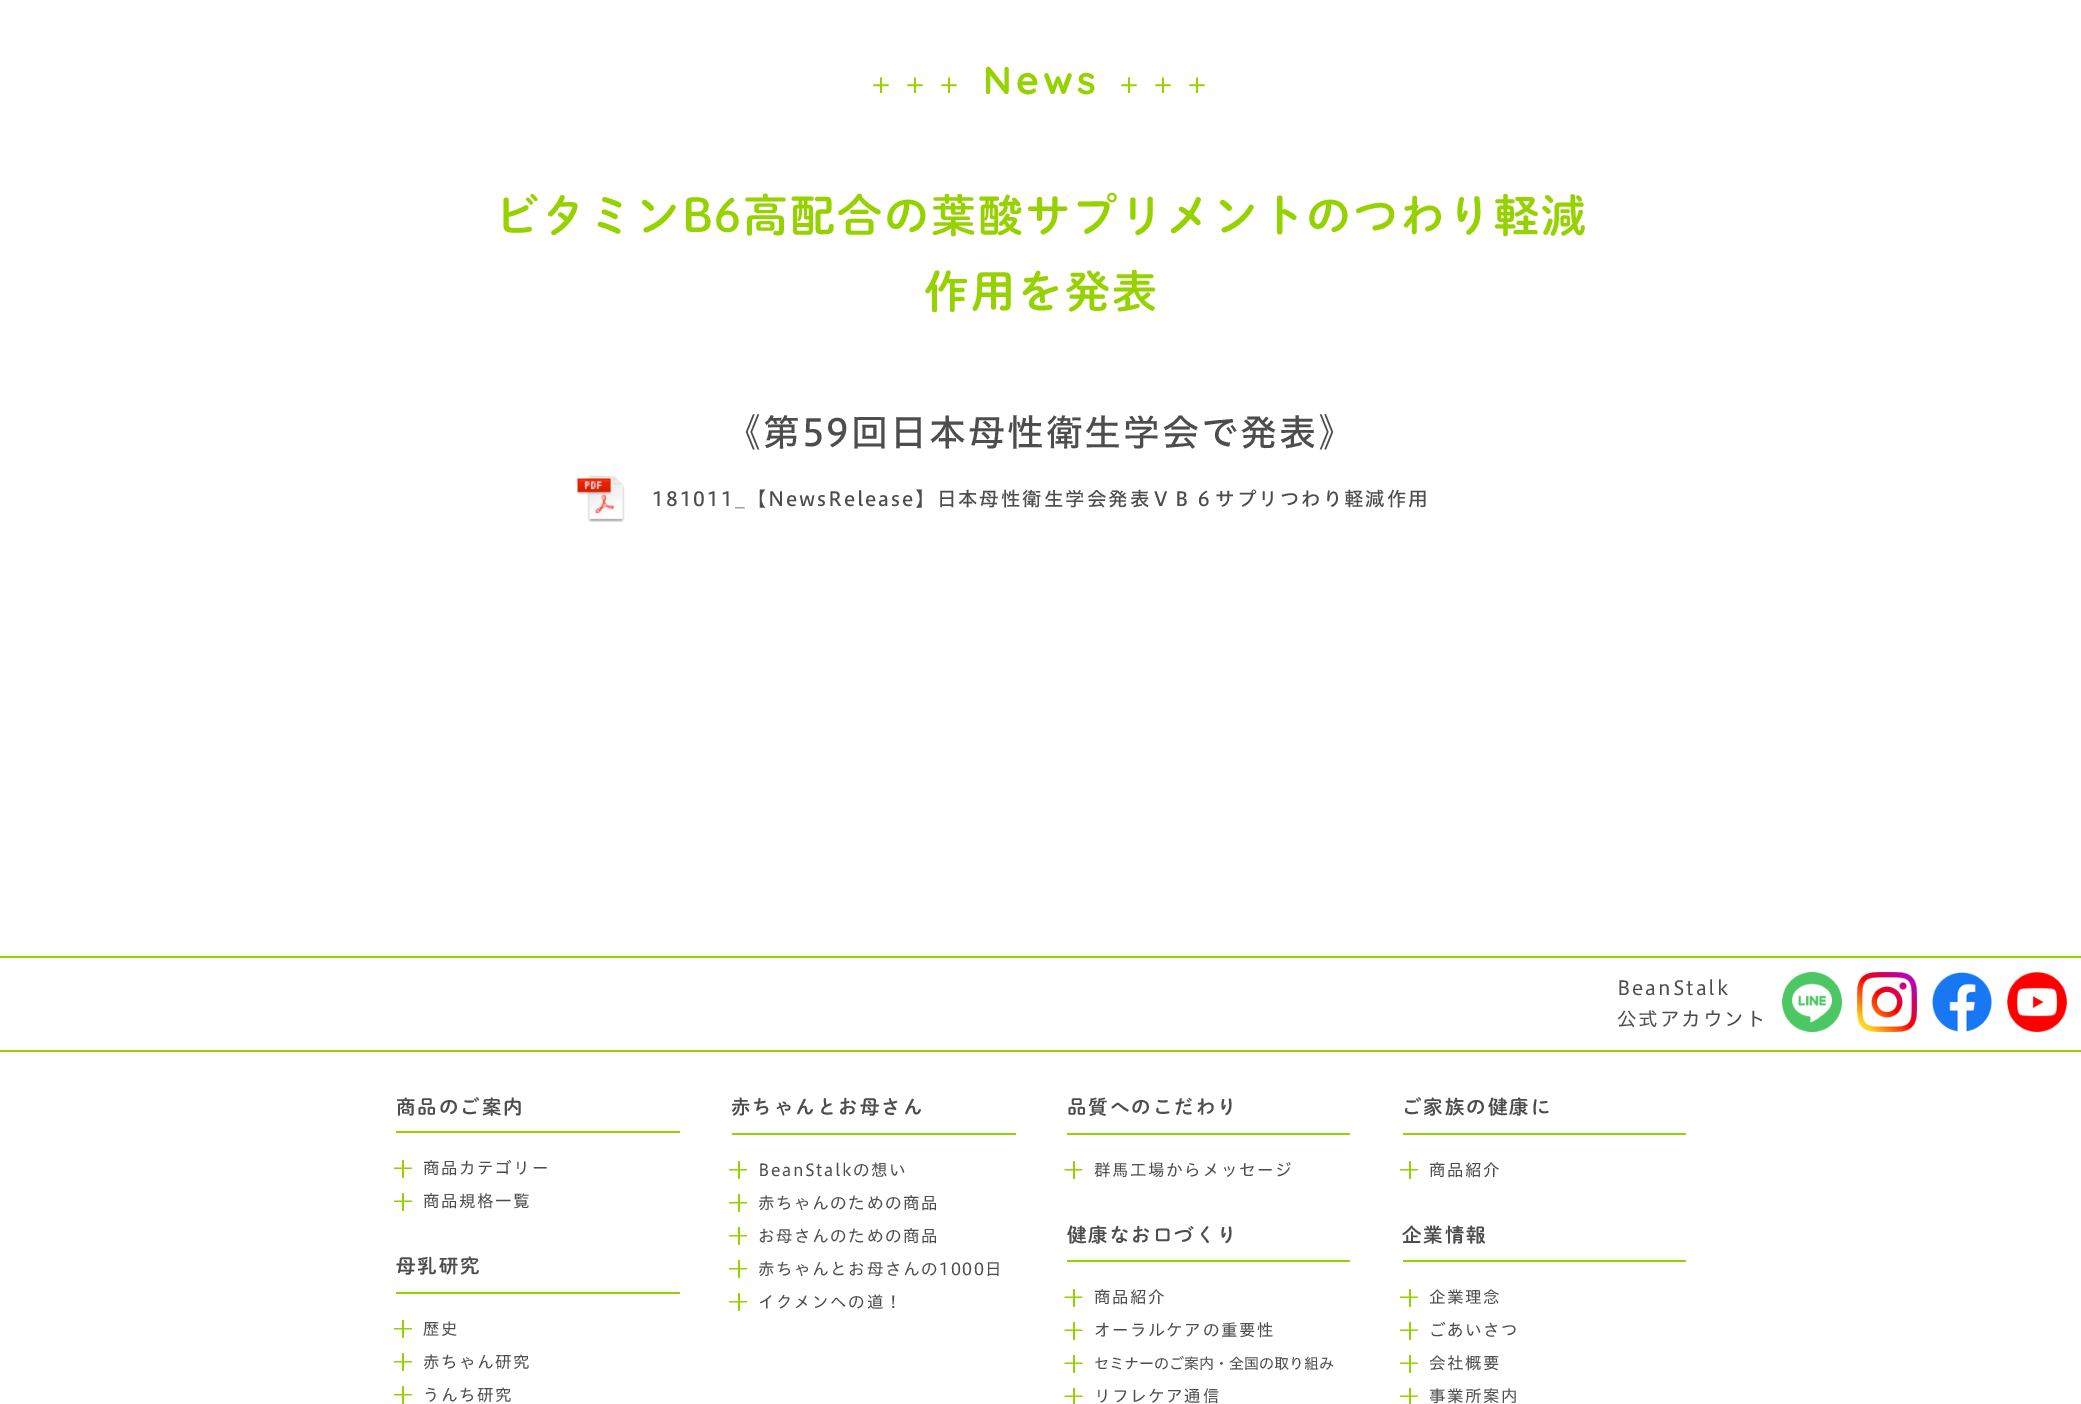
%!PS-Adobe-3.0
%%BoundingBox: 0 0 2081 1404
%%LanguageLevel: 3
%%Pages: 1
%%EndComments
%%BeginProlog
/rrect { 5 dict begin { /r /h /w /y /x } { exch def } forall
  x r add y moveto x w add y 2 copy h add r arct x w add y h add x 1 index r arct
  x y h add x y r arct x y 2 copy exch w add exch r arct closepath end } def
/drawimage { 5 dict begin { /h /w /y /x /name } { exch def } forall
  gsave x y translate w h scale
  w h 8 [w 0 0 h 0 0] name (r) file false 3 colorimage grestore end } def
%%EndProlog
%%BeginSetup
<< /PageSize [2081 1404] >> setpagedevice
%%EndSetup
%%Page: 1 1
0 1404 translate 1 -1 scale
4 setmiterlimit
1 setgray
0 0 2081 1404 rectfill
(images/1.raw) 577 475 48 47 drawimage
0.588 0.824 0 setrgbcolor
0 956 2081 2 rectfill
0 1050 2081 2 rectfill
(images/2.raw) 1782 972 60 60 drawimage
(images/3.raw) 1857 972 60 60 drawimage
(images/4.raw) 1932 972 60 60 drawimage
(images/5.raw) 2007 972 60 60 drawimage
396 1131 284 2 rectfill
newpath 412 1168 moveto 412 1168.5 411.5 1169 411 1169 curveto 394.5 1169 lineto 394 1169 394 1168.5 394 1168 curveto 394 1168 394 1167.5 394.5 1167.5 curveto 411 1167.5 lineto 411.5 1167.5 412 1168 412 1168 curveto closepath fill
402 1160 2 18 1 rrect fill
newpath 412 1201 moveto 412 1201.5 411.5 1202 411 1202 curveto 394.5 1202 lineto 394 1202 394 1201.5 394 1201 curveto 394 1201 394 1200.5 394.5 1200.5 curveto 411 1200.5 lineto 411.5 1200.5 412 1201 412 1201 curveto closepath fill
402 1193 2 18 1 rrect fill
396 1292 284 2 rectfill
newpath 412 1328.5 moveto 412 1329 411.5 1329.5 411 1329.5 curveto 394.5 1329.5 lineto 394 1329.5 394 1329 394 1328.5 curveto 394 1328.5 394 1328 394.5 1328 curveto 411 1328 lineto 411.5 1328 412 1328.5 412 1328.5 curveto closepath fill
402 1320 2 18 1 rrect fill
newpath 412 1361.5 moveto 412 1362 411.5 1362.5 411 1362.5 curveto 394.5 1362.5 lineto 394 1362.5 394 1362 394 1361.5 curveto 394 1361.5 394 1361 394.5 1361 curveto 411 1361 lineto 411.5 1361 412 1361.5 412 1361.5 curveto closepath fill
402 1353 2 18 1 rrect fill
newpath 412 1394.5 moveto 412 1395 411.5 1395.5 411 1395.5 curveto 394.5 1395.5 lineto 394 1395.5 394 1395 394 1394.5 curveto 394 1394.5 394 1394 394.5 1394 curveto 411 1394 lineto 411.5 1394 412 1394.5 412 1394.5 curveto closepath fill
402 1386 2 18 1 rrect fill
732 1133 284 2 rectfill
newpath 747 1169.5 moveto 747 1170 747 1170.5 746.5 1170.5 curveto 730 1170.5 lineto 729.5 1170.5 729 1170 729 1169.5 curveto 729 1169.5 729.5 1169 730 1169 curveto 746.5 1169 lineto 747 1169 747 1169.5 747 1169.5 curveto closepath fill
738 1161 2 18 1 rrect fill
newpath 747 1202.5 moveto 747 1203 747 1203.5 746.5 1203.5 curveto 730 1203.5 lineto 729.5 1203.5 729 1203 729 1202.5 curveto 729 1202.5 729.5 1202 730 1202 curveto 746.5 1202 lineto 747 1202 747 1202.5 747 1202.5 curveto closepath fill
738 1194 2 18 1 rrect fill
newpath 747 1235.5 moveto 747 1236 747 1236.5 746.5 1236.5 curveto 730 1236.5 lineto 729.5 1236.5 729 1236 729 1235.5 curveto 729 1235.5 729.5 1235 730 1235 curveto 746.5 1235 lineto 747 1235 747 1235.5 747 1235.5 curveto closepath fill
738 1227 2 18 1 rrect fill
newpath 747 1268.5 moveto 747 1269 747 1269.5 746.5 1269.5 curveto 730 1269.5 lineto 729.5 1269.5 729 1269 729 1268.5 curveto 729 1268.5 729.5 1268 730 1268 curveto 746.5 1268 lineto 747 1268 747 1268.5 747 1268.5 curveto closepath fill
738 1260 2 18 1 rrect fill
newpath 747 1301.5 moveto 747 1302 747 1302.5 746.5 1302.5 curveto 730 1302.5 lineto 729.5 1302.5 729 1302 729 1301.5 curveto 729 1301.5 729.5 1301 730 1301 curveto 746.5 1301 lineto 747 1301 747 1301.5 747 1301.5 curveto closepath fill
738 1293 2 18 1 rrect fill
1067 1133 283 2 rectfill
newpath 1082.5 1169.5 moveto 1082.5 1170 1082 1170.5 1082 1170.5 curveto 1065.5 1170.5 lineto 1065 1170.5 1064.5 1170 1064.5 1169.5 curveto 1064.5 1169.5 1065 1169 1065.5 1169 curveto 1082 1169 lineto 1082 1169 1082.5 1169.5 1082.5 1169.5 curveto closepath fill
1073 1161 2 18 1 rrect fill
1067 1260 283 2 rectfill
newpath 1082.5 1297 moveto 1082.5 1297.5 1082 1298 1082 1298 curveto 1065.5 1298 lineto 1065 1298 1064.5 1297.5 1064.5 1297 curveto 1064.5 1297 1065 1296.5 1065.5 1296.5 curveto 1082 1296.5 lineto 1082 1296.5 1082.5 1297 1082.5 1297 curveto closepath fill
1073 1289 2 18 1 rrect fill
newpath 1082.5 1330 moveto 1082.5 1330.5 1082 1331 1082 1331 curveto 1065.5 1331 lineto 1065 1331 1064.5 1330.5 1064.5 1330 curveto 1064.5 1330 1065 1329.5 1065.5 1329.5 curveto 1082 1329.5 lineto 1082 1329.5 1082.5 1330 1082.5 1330 curveto closepath fill
1073 1322 2 18 1 rrect fill
newpath 1082.5 1363 moveto 1082.5 1363.5 1082 1364 1082 1364 curveto 1065.5 1364 lineto 1065 1364 1064.5 1363.5 1064.5 1363 curveto 1064.5 1363 1065 1362.5 1065.5 1362.5 curveto 1082 1362.5 lineto 1082 1362.5 1082.5 1363 1082.5 1363 curveto closepath fill
1073 1355 2 18 1 rrect fill
newpath 1082.5 1396 moveto 1082.5 1396.5 1082 1397 1082 1397 curveto 1065.5 1397 lineto 1065 1397 1064.5 1396.5 1064.5 1396 curveto 1064.5 1396 1065 1395.5 1065.5 1395.5 curveto 1082 1395.5 lineto 1082 1395.5 1082.5 1396 1082.5 1396 curveto closepath fill
1073 1388 2 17 1 rrect fill
1403 1133 283 2 rectfill
newpath 1418 1169.5 moveto 1418 1170 1417.5 1170.5 1417 1170.5 curveto 1400.5 1170.5 lineto 1400.5 1170.5 1400 1170 1400 1169.5 curveto 1400 1169.5 1400.5 1169 1400.5 1169 curveto 1417 1169 lineto 1417.5 1169 1418 1169.5 1418 1169.5 curveto closepath fill
1409 1161 2 18 1 rrect fill
1403 1260 283 2 rectfill
newpath 1418 1297 moveto 1418 1297.5 1417.5 1298 1417 1298 curveto 1400.5 1298 lineto 1400.5 1298 1400 1297.5 1400 1297 curveto 1400 1297 1400.5 1296.5 1400.5 1296.5 curveto 1417 1296.5 lineto 1417.5 1296.5 1418 1297 1418 1297 curveto closepath fill
1409 1289 2 18 1 rrect fill
newpath 1418 1330 moveto 1418 1330.5 1417.5 1331 1417 1331 curveto 1400.5 1331 lineto 1400.5 1331 1400 1330.5 1400 1330 curveto 1400 1330 1400.5 1329.5 1400.5 1329.5 curveto 1417 1329.5 lineto 1417.5 1329.5 1418 1330 1418 1330 curveto closepath fill
1409 1322 2 18 1 rrect fill
newpath 1418 1363 moveto 1418 1363.5 1417.5 1364 1417 1364 curveto 1400.5 1364 lineto 1400.5 1364 1400 1363.5 1400 1363 curveto 1400 1363 1400.5 1362.5 1400.5 1362.5 curveto 1417 1362.5 lineto 1417.5 1362.5 1418 1363 1418 1363 curveto closepath fill
1409 1355 2 18 1 rrect fill
newpath 1418 1396 moveto 1418 1396.5 1417.5 1397 1417 1397 curveto 1400.5 1397 lineto 1400.5 1397 1400 1396.5 1400 1396 curveto 1400 1396 1400.5 1395.5 1400.5 1395.5 curveto 1417 1395.5 lineto 1417.5 1395.5 1418 1396 1418 1396 curveto closepath fill
1409 1388 2 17 1 rrect fill
/WenQuanYiZenHei-Medium [30 0 0 -30 0 0] selectfont
866 94 moveto 4 0 (＋＋＋) ashow
/Quicksand-Light [39 0 0 -39 0 0] selectfont
983 94 moveto 4 0 (News) ashow
/WenQuanYiZenHei-Medium [30 0 0 -30 0 0] selectfont
1114 94 moveto 4 0 (＋＋＋) ashow
/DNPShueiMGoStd-SemiBold [45 0 0 -45 0 0] selectfont
494 232 moveto 1.95 0 (ビタミンB6高配合の葉酸サプリメントのつわり軽減) ashow
924 308 moveto 1.95 0 (作用を発表) ashow
/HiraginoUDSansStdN-Medium [37 0 0 -37 0 0] selectfont
0.302 setgray
724 446 moveto 1.95 0 (《第59回日本母性衛生学会で発表》) ashow
/HiraginoUDSansStdN-Medium [19.5 0 0 -19.5 0 0] selectfont
652 506 moveto 1.95 0 (181011_【NewsRelease】日本母性衛生学会発表ＶＢ６サプリつわり軽減作用) ashow
/HiraginoUDSansStdN-Regular [19.5 0 0 -19.5 0 0] selectfont
1617 995 moveto 1.95 0 (BeanStalk) ashow
1617 1026 moveto 1.95 0 (公式アカウント) ashow
/DNPShueiMGoStd-SemiBold [19.5 0 0 -19.5 0 0] selectfont
396 1114 moveto 1.95 0 (商品のご案内) ashow
/HiraginoUDSansStdN-Regular [16.5 0 0 -16.5 0 0] selectfont
423 1174 moveto 1.6 0 (商品カテゴリー) ashow
423 1207 moveto 1.6 0 (商品規格一覧) ashow
/DNPShueiMGoStd-SemiBold [19.5 0 0 -19.5 0 0] selectfont
396 1273 moveto 1.95 0 (母乳研究) ashow
/HiraginoUDSansStdN-Regular [16.5 0 0 -16.5 0 0] selectfont
423 1335 moveto 1.6 0 (歴史) ashow
423 1368 moveto 1.6 0 (赤ちゃん研究) ashow
423 1401 moveto 1.6 0 (うんち研究) ashow
/DNPShueiMGoStd-SemiBold [19.5 0 0 -19.5 0 0] selectfont
731 1114 moveto 1.95 0 (赤ちゃんとお母さん) ashow
/HiraginoUDSansStdN-Regular [16.5 0 0 -16.5 0 0] selectfont
758 1176 moveto 1.6 0 (BeanStalkの想い) ashow
758 1209 moveto 1.6 0 (赤ちゃんのための商品) ashow
758 1242 moveto 1.6 0 (お母さんのための商品) ashow
758 1275 moveto 1.6 0 (赤ちゃんとお母さんの1000日) ashow
758 1308 moveto 1.6 0 (イクメンへの道！) ashow
/DNPShueiMGoStd-SemiBold [19.5 0 0 -19.5 0 0] selectfont
1067 1114 moveto 1.95 0 (品質へのこだわり) ashow
/HiraginoUDSansStdN-Regular [16.5 0 0 -16.5 0 0] selectfont
1094 1176 moveto 1.6 0 (群馬工場からメッセージ) ashow
/DNPShueiMGoStd-SemiBold [19.5 0 0 -19.5 0 0] selectfont
1067 1242 moveto 1.95 0 (健康なお口づくり) ashow
/HiraginoUDSansStdN-Regular [16.5 0 0 -16.5 0 0] selectfont
1094 1303 moveto 1.6 0 (商品紹介) ashow
1094 1336 moveto 1.6 0 (オーラルケアの重要性) ashow
/HiraginoUDSansStdN-Regular [15 0 0 -15 0 0] selectfont
1094 1369 moveto (セミナーのご案内・全国の取り組み) show
/HiraginoUDSansStdN-Regular [16.5 0 0 -16.5 0 0] selectfont
1094 1402 moveto 1.6 0 (リフレケア通信) ashow
/DNPShueiMGoStd-SemiBold [19.5 0 0 -19.5 0 0] selectfont
1402 1114 moveto 1.95 0 (ご家族の健康に) ashow
/HiraginoUDSansStdN-Regular [16.5 0 0 -16.5 0 0] selectfont
1429 1176 moveto 1.6 0 (商品紹介) ashow
/DNPShueiMGoStd-SemiBold [19.5 0 0 -19.5 0 0] selectfont
1402 1242 moveto 1.95 0 (企業情報) ashow
/HiraginoUDSansStdN-Regular [16.5 0 0 -16.5 0 0] selectfont
1429 1303 moveto 1.6 0 (企業理念) ashow
1429 1336 moveto 1.6 0 (ごあいさつ) ashow
1429 1369 moveto 1.6 0 (会社概要) ashow
1429 1402 moveto 1.6 0 (事業所案内) ashow
showpage
%%EOF
